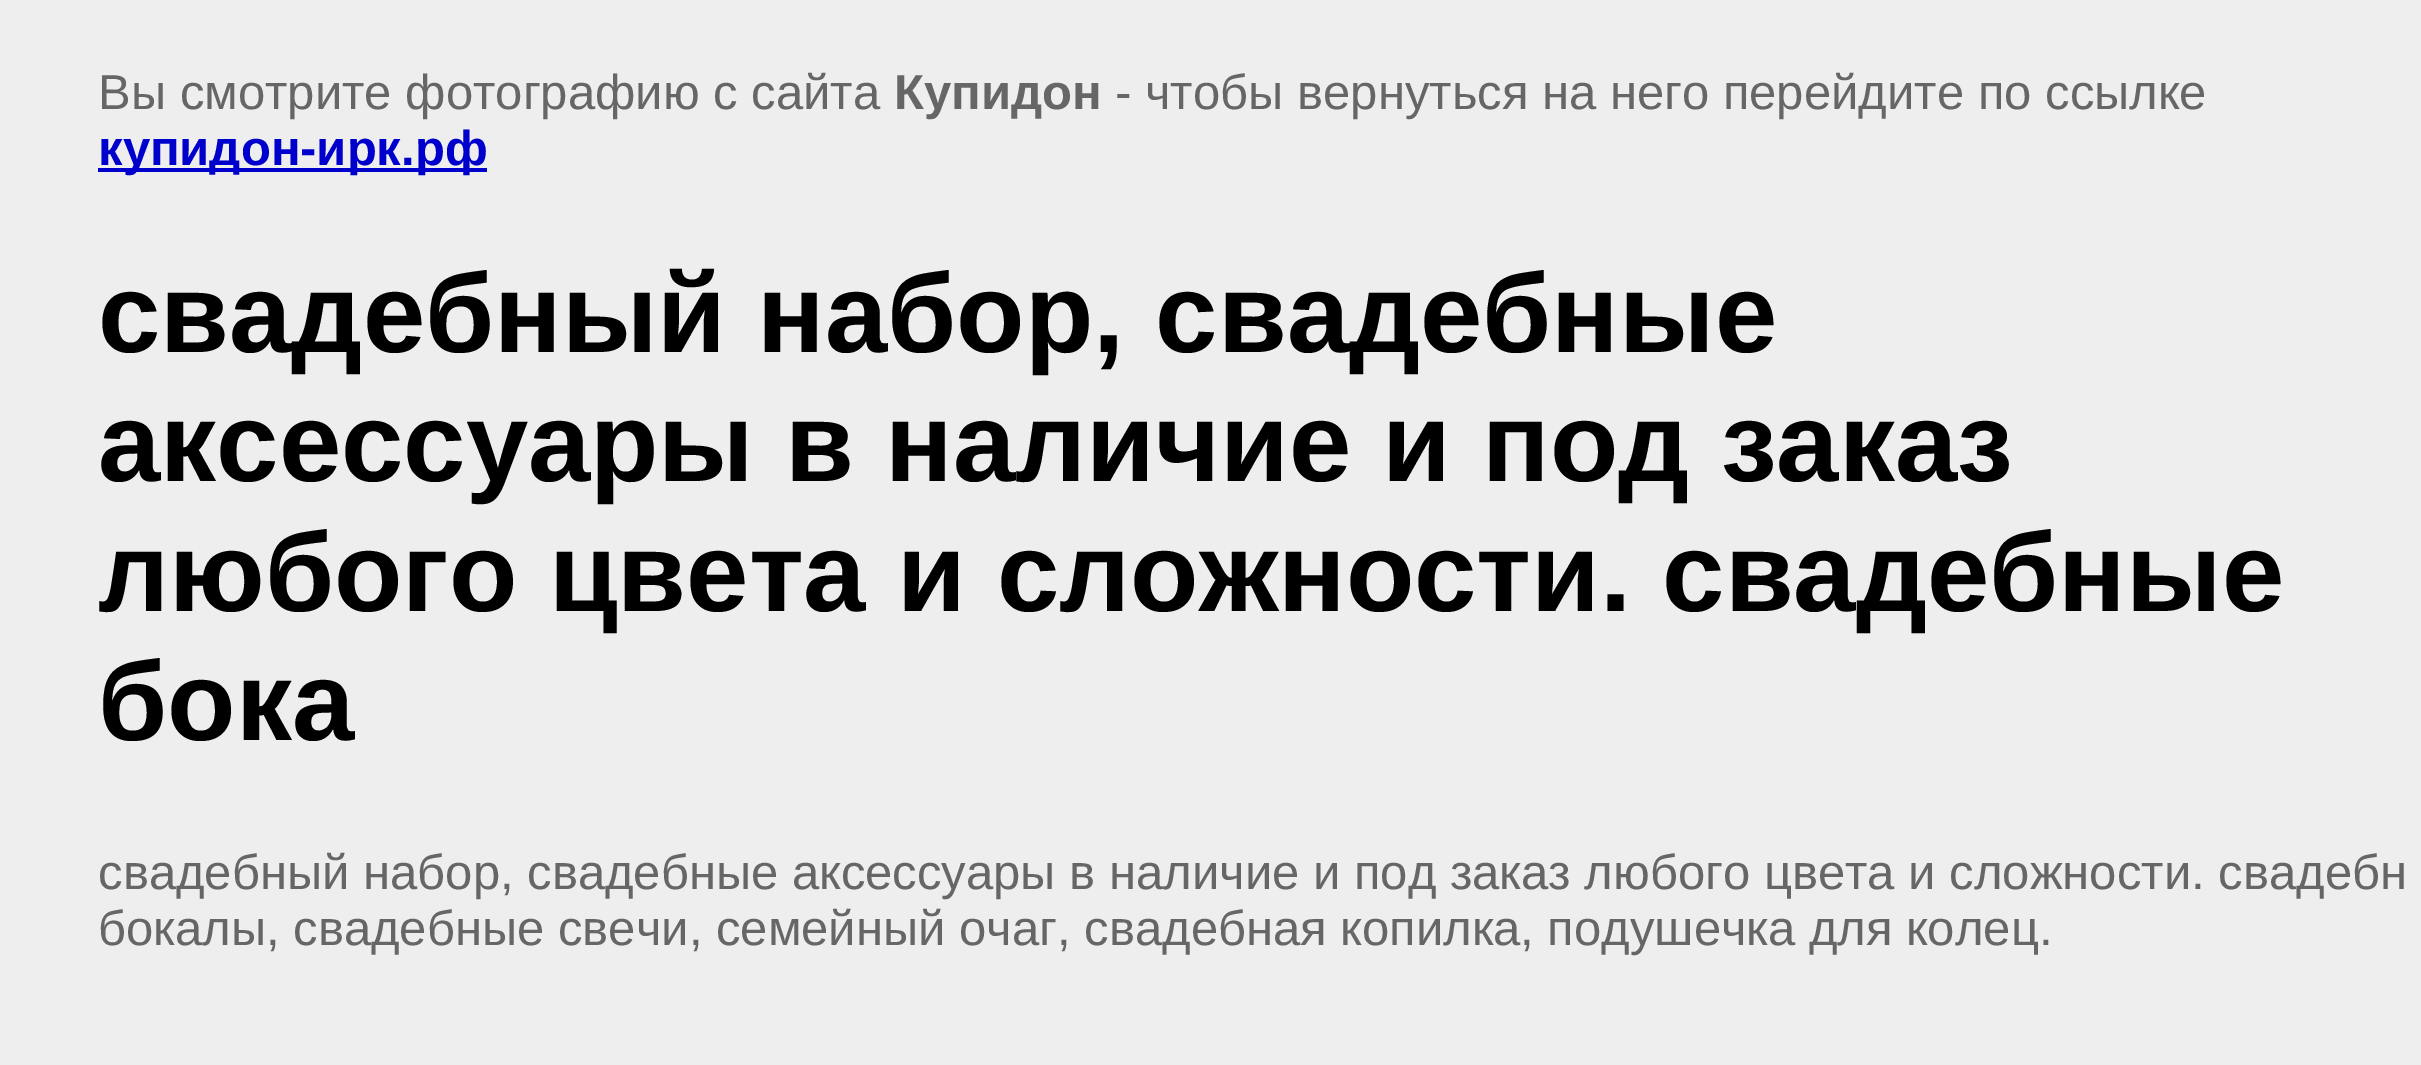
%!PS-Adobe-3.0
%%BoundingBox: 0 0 2421 1065
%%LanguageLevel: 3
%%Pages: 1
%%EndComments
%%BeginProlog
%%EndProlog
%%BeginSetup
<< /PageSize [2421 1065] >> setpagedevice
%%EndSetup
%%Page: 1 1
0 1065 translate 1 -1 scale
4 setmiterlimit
0.933 setgray
0 0 2421 1065 rectfill
0 0 0.8 setrgbcolor
98 168 389 4 rectfill
/LiberationSans-Regular [49 0 0 -49 0 0] selectfont
0.4 setgray
98 109 moveto (Вы смотрите фотографию с сайта) show
/LiberationSans-Bold [49 0 0 -49 0 0] selectfont
894 109 moveto (Купидон) show
/LiberationSans-Regular [49 0 0 -49 0 0] selectfont
1115 109 moveto (- чтобы вернуться на него перейдите по ссылке) show
/LiberationSans-Bold [49 0 0 -49 0 0] selectfont
0 0 0.8 setrgbcolor
98 165 moveto (купидон-ирк.рф) show
/LiberationSans-Bold [112 0 0 -112 0 0] selectfont
0 setgray
98 352 moveto (свадебный набор, свадебные) show
98 481 moveto (аксессуары в наличие и под заказ) show
98 611 moveto (любого цвета и сложности. свадебные) show
98 740 moveto (бока) show
/LiberationSans-Regular [49 0 0 -49 0 0] selectfont
0.4 setgray
98 889 moveto (свадебный набор, свадебные аксессуары в наличие и под заказ любого цвета и сложности. свадебн) show
98 945 moveto (бокалы, свадебные свечи, семейный очаг, свадебная копилка, подушечка для колец.) show
showpage
%%EOF
